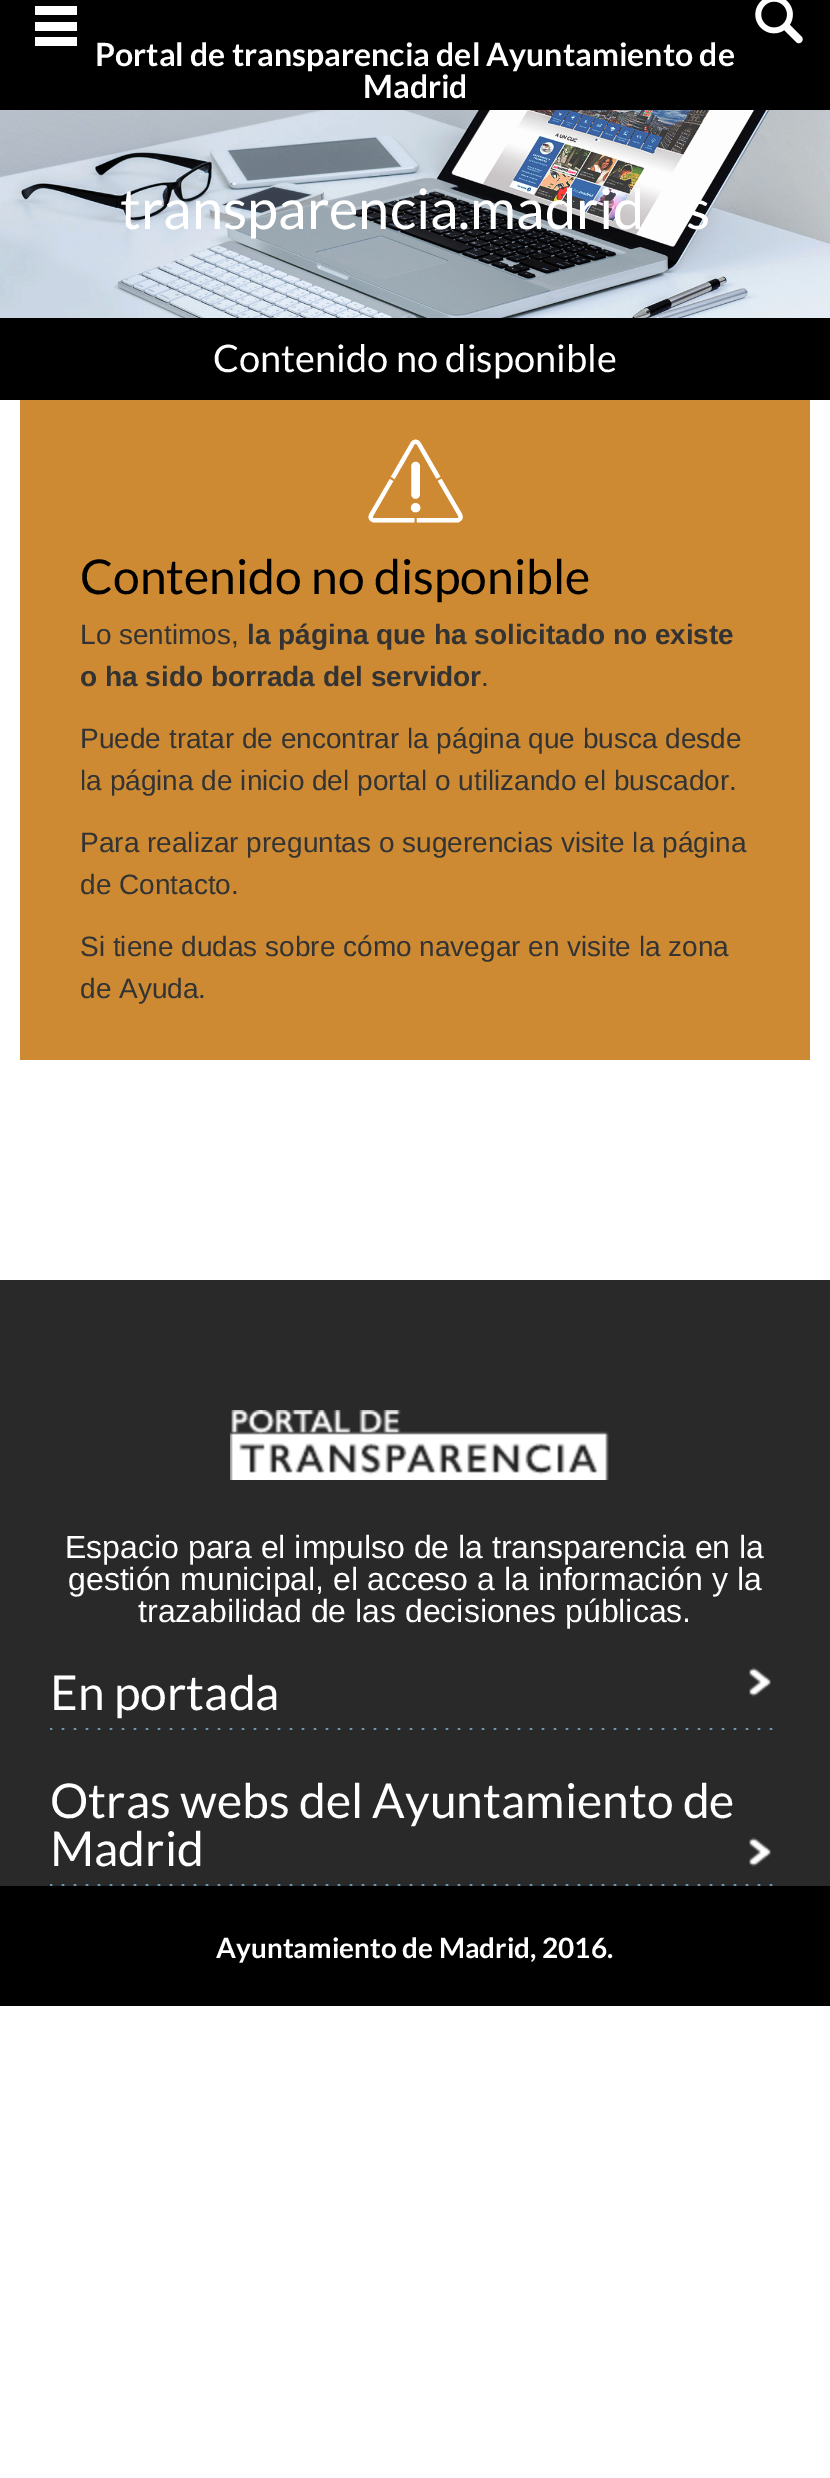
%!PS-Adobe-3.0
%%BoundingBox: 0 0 830 2478
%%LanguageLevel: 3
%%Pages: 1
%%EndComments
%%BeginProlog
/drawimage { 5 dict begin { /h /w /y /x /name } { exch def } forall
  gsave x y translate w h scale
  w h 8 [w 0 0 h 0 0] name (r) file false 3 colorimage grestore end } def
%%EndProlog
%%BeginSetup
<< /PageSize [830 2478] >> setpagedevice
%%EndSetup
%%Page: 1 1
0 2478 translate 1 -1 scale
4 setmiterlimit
1 setgray
0 0 830 2478 rectfill
0 setgray
0 0 830 110 rectfill
1 setgray
newpath 35 6 moveto 35 15 lineto 77 15 lineto 77 6 lineto closepath 35 31 moveto 77 31 lineto 77 22 lineto 35 22 lineto closepath 35 46 moveto 77 46 lineto 77 37 lineto 35 37 lineto closepath fill
(images/1.raw) 755 0 48 44 drawimage
(images/2.raw) 0 110 830 208 drawimage
0 setgray
0 318 830 82 rectfill
0.808 0.541 0.196 setrgbcolor
20 400 790 660 rectfill
0.161 setgray
0 1280 830 606 rectfill
(images/3.raw) 230 1410 379 70 drawimage
(images/4.raw) 50 1728 723 2 drawimage
(images/5.raw) 749 1667 22 30 drawimage
(images/4.raw) 50 1884 723 2 drawimage
(images/5.raw) 749 1837 22 30 drawimage
0 setgray
0 1886 830 120 rectfill
/Lato-Bold [32 0 0 -32 0 0] selectfont
1 setgray
95 66 moveto (Portal de transparencia del Ayuntamiento de) show
363 98 moveto (Madrid) show
/Lato-Regular [56 0 0 -56 0 0] selectfont
120 229 moveto (transparencia.madrid) show
686 229 moveto (s) show
/Lato-Regular [38 0 0 -38 0 0] selectfont
213 372 moveto (Contenido no disponible) show
/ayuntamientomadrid-Regular [100 0 0 -100 0 0] selectfont
365 526 moveto (") show
/Lato-Regular [48 0 0 -48 0 0] selectfont
0 setgray
80 594 moveto (Contenido no disponible) show
/LiberationSans-Regular [28 0 0 -28 0 0] selectfont
0.2 setgray
80 644 moveto (Lo sentimos,) show
/LiberationSans-Bold [28 0 0 -28 0 0] selectfont
247 644 moveto (la página que ha solicitado no existe) show
80 686 moveto (o ha sido borrada del servidor) show
/LiberationSans-Regular [28 0 0 -28 0 0] selectfont
481 686 moveto (.) show
80 748 moveto (Puede tratar de encontrar la página que busca desde) show
80 790 moveto (la página de inicio del portal o utilizando el buscador.) show
80 852 moveto (Para realizar preguntas o sugerencias visite la página) show
80 894 moveto (de Contacto.) show
80 956 moveto (Si tiene dudas sobre cómo navegar en visite la zona) show
80 998 moveto (de Ayuda.) show
/LiberationSans-Regular [32 0 0 -32 0 0] selectfont
1 setgray
65 1558 moveto (Espacio para el impulso de la transparencia en la) show
68 1590 moveto (gestión municipal, el acceso a la información y la) show
138 1622 moveto (trazabilidad de las decisiones públicas.) show
/Lato-Regular [48 0 0 -48 0 0] selectfont
50 1710 moveto (En portada) show
50 1818 moveto (Otras webs del Ayuntamiento de) show
50 1866 moveto (Madrid) show
/Lato-Bold [28 0 0 -28 0 0] selectfont
216 1958 moveto (Ayuntamiento de Madrid, 2016.) show
showpage
%%EOF
